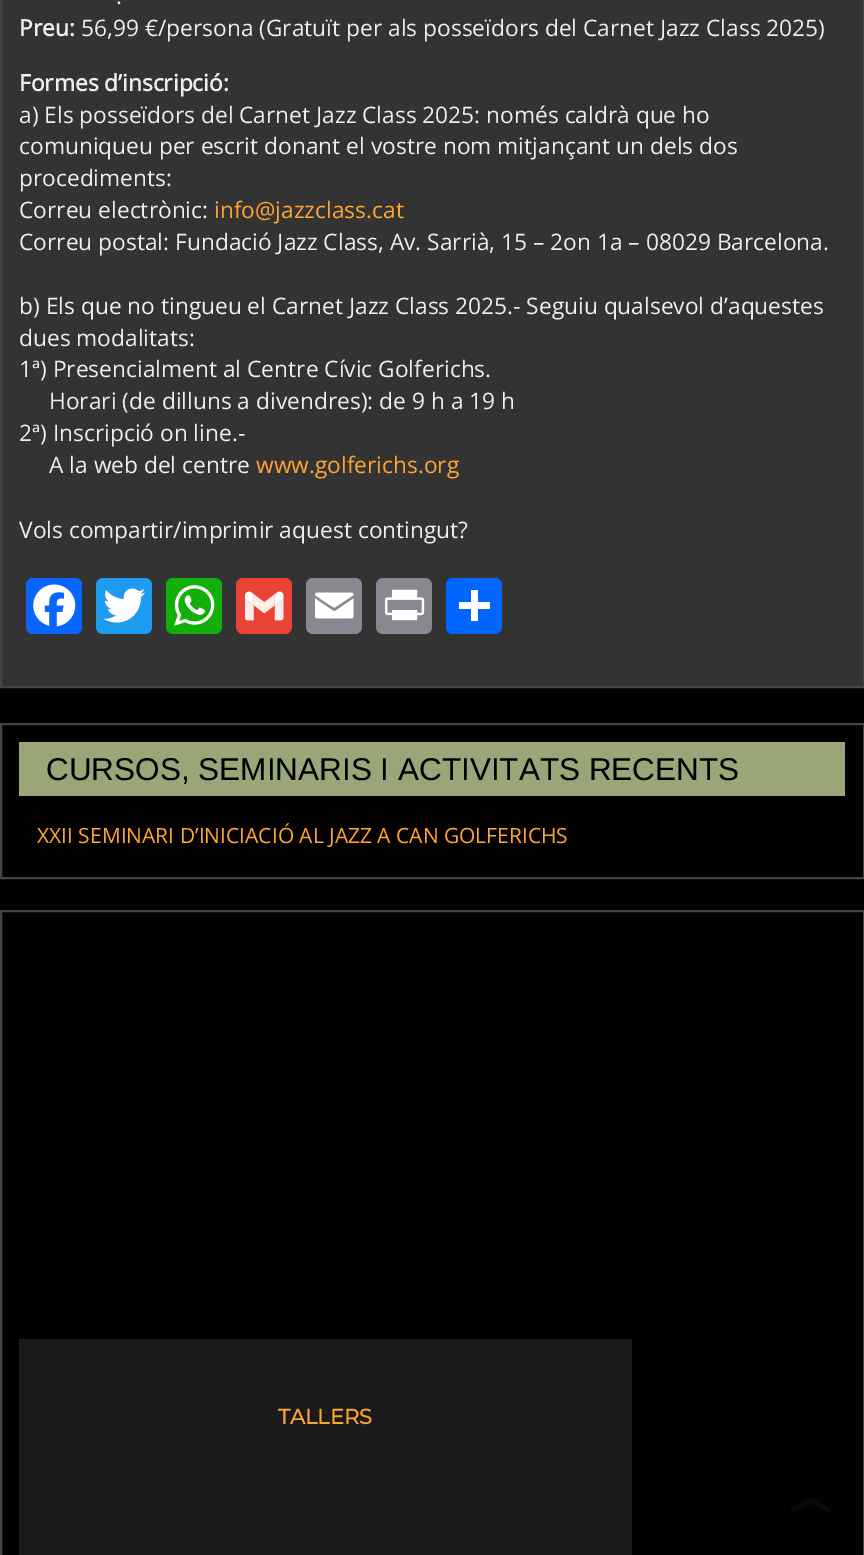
%!PS-Adobe-3.0
%%BoundingBox: 0 0 864 1555
%%LanguageLevel: 3
%%Pages: 1
%%EndComments
%%BeginProlog
/rrect { 5 dict begin { /r /h /w /y /x } { exch def } forall
  x r add y moveto x w add y 2 copy h add r arct x w add y h add x 1 index r arct
  x y h add x y r arct x y 2 copy exch w add exch r arct closepath end } def
/drawimage { 5 dict begin { /h /w /y /x /name } { exch def } forall
  gsave x y translate w h scale
  w h 8 [w 0 0 h 0 0] name (r) file false 3 colorimage grestore end } def
%%EndProlog
%%BeginSetup
<< /PageSize [864 1555] >> setpagedevice
%%EndSetup
%%Page: 1 1
0 1555 translate 1 -1 scale
4 setmiterlimit
0.012 0 0 setrgbcolor
0 0 864 1555 rectfill
0.2 setgray
newpath 1 -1 moveto 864 -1 lineto 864 687 lineto 1 687 lineto closepath gsave fill grestore
0.267 setgray
2 setlinewidth
stroke
0.031 0.4 1 setrgbcolor
26 578 56 56 7 rrect fill
(images/1.raw) 33 584 43 43 drawimage
0.114 0.608 0.941 setrgbcolor
96 578 56 56 7 rrect fill
(images/2.raw) 103 588 43 35 drawimage
0.071 0.686 0.039 setrgbcolor
166 578 56 56 7 rrect fill
(images/3.raw) 174 585 41 41 drawimage
0.918 0.263 0.208 setrgbcolor
236 578 56 56 7 rrect fill
(images/4.raw) 245 591 39 30 drawimage
0.533 0.537 0.565 setrgbcolor
306 578 56 56 7 rrect fill
(images/5.raw) 315 592 39 27 drawimage
376 578 56 56 7 rrect fill
(images/6.raw) 385 589 40 32 drawimage
0.004 0.4 1 setrgbcolor
446 578 56 56 7 rrect fill
1 setgray
471 590 7 31 rectfill
459 602 31 7 rectfill
0.267 setgray
1 724 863 154 rectstroke
0.604 0.647 0.471 setrgbcolor
19 742 826 54 rectfill
0.267 setgray
1 911 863 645 rectstroke
0.106 0.102 0.102 setrgbcolor
19 1339 613 216 rectfill
(images/7.raw) 791 1498 38 15 drawimage
/OpenSans-Regular [22.75 0 0 -22.75 0 0] selectfont
0.933 setgray
116 4 moveto (.) show
/OpenSans-Bold [22.75 0 0 -22.75 0 0] selectfont
19 36 moveto (Preu:) show
/OpenSans-Regular [22.75 0 0 -22.75 0 0] selectfont
81 36 moveto (56,99 €/persona \(Gratuït per als posseïdors del Carnet Jazz Class 2025\)) show
/OpenSans-Bold [22.75 0 0 -22.75 0 0] selectfont
19 91 moveto (Formes d’inscripció:) show
/OpenSans-Regular [22.75 0 0 -22.75 0 0] selectfont
19 123 moveto (a\) Els posseïdors del Carnet Jazz Class 2025: només caldrà que ho) show
19 154 moveto (comuniqueu per escrit donant el vostre nom mitjançant un dels dos) show
19 186 moveto (procediments:) show
19 218 moveto (Correu electrònic:) show
1 0.647 0.2 setrgbcolor
214 218 moveto (info@jazzclass.cat) show
0.933 setgray
19 250 moveto (Correu postal: Fundació Jazz Class, Av. Sarrià, 15 – 2on 1a – 08029 Barcelona.) show
19 314 moveto (b\) Els que no tingueu el Carnet Jazz Class 2025.- Seguiu qualsevol d’aquestes) show
19 346 moveto (dues modalitats:) show
19 377 moveto (1ª\) Presencialment al Centre Cívic Golferichs.) show
49 409 moveto (Horari \(de dilluns a divendres\): de 9 h a 19 h) show
19 441 moveto (2ª\) Inscripció on line.-) show
49 473 moveto (A la web del centre) show
1 0.647 0.2 setrgbcolor
256 473 moveto (www.golferichs.org) show
0.933 setgray
19 538 moveto (Vols compartir/imprimir aquest contingut?) show
/LiberationSans-Regular [31.5 0 0 -31.5 0 0] selectfont
0 setgray
46 780 moveto (CURSOS, SEMINARIS I ACTIVITATS RECENTS) show
/OpenSans-Regular [21 0 0 -21 0 0] selectfont
1 0.647 0.2 setrgbcolor
37 843 moveto (XXII SEMINARI D’INICIACIÓ AL JAZZ A CAN GOLFERICHS) show
/Montserrat-Bold [21 0 0 -21 0 0] selectfont
278 1424 moveto (TALLERS) show
showpage
%%EOF
